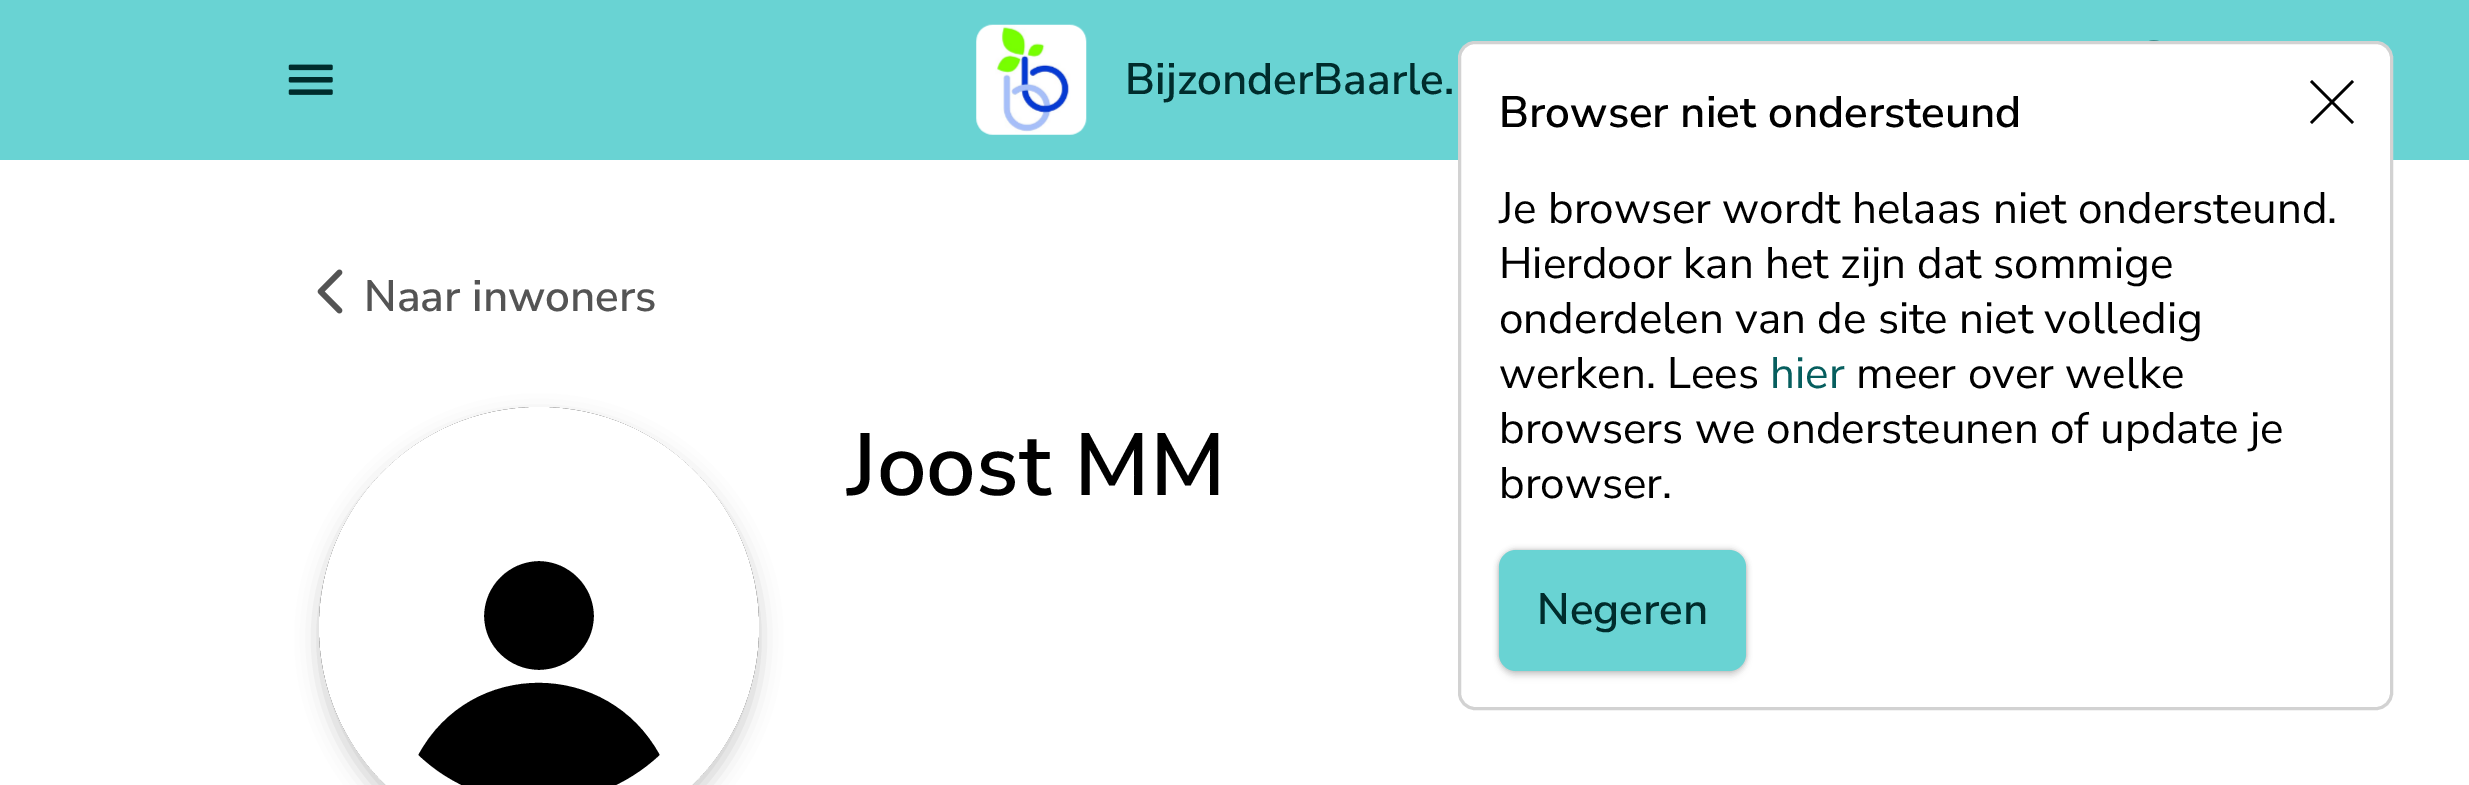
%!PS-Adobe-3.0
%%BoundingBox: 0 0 2469 785
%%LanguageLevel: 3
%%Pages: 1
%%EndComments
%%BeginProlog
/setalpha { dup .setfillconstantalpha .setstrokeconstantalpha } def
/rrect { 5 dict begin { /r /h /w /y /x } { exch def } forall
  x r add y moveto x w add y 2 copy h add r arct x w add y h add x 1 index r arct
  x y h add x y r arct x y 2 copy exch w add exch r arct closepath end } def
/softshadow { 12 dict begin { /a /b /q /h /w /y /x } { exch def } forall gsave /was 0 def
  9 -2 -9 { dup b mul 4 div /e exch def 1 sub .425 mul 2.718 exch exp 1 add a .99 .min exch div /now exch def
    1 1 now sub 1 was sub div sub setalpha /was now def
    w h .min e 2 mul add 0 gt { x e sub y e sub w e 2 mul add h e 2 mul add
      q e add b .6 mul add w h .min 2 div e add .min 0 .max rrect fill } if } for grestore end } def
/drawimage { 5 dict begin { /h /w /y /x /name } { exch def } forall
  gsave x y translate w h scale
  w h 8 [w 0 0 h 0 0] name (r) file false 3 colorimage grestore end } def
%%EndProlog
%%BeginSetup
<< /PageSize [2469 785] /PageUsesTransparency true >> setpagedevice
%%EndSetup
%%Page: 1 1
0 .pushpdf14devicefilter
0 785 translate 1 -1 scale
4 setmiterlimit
1 setgray
0 0 2469 785 rectfill
0.412 0.827 0.827 setrgbcolor
0 0 2469 160 rectfill
(images/1.raw) 2149 40 10 1 drawimage
(images/2.raw) 288 64 45 31 drawimage
(images/3.raw) 976 24 111 111 drawimage
(images/4.raw) 317 269 26 45 drawimage
0 setgray
319 418 440 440 220 11 0.2 softshadow
newpath 539 627 220 0 360 arc closepath fill
1 setgray
newpath 539 407 moveto 417 407 319 505 319 627 curveto 319 749 417 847 539 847 curveto 661 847 759 749 759 627 curveto 759 505 661 407 539 407 curveto closepath 594 616 moveto 594 586 569 561 539 561 curveto 509 561 484 586 484 616 curveto 484 646 509 670 539 670 curveto 569 670 594 646 594 616 curveto closepath 418 755 moveto 485 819 592 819 660 755 curveto 608 659 470 658 418 755 curveto closepath eofill
1459.5 42.5 932 666 15.5 rrect gsave fill grestore
0.824 setgray
3 setlinewidth
stroke
0 setgray
newpath 2332 100 moveto 2312 80 lineto 2310 82 lineto 2330 102 lineto 2310 122 lineto 2312 124 lineto 2332 104 lineto 2352 124 lineto 2354 122 lineto 2334 102 lineto 2354 82 lineto 2352 80 lineto closepath fill
1499 556 247 121 17 3 0.1 softshadow
1499 550 247 121 17 3 0.3 softshadow
0.412 0.827 0.827 setrgbcolor
1499 550 247 121 17 rrect fill
/NunitoSans-SemiBold [44 0 0 -44 0 0] selectfont
0 0.173 0.173 setrgbcolor
1125 94 moveto (BijzonderBaarle.) show
0.329 setgray
364 311 moveto (Naar inwoners) show
/NunitoSans-SemiBold [88 0 0 -88 0 0] selectfont
0 setgray
847 495 moveto (Joost MM) show
/NunitoSans-SemiBold [44 0 0 -44 0 0] selectfont
1499 127 moveto (Browser niet ondersteund) show
/NunitoSans-Regular [44 0 0 -44 0 0] selectfont
1499 223 moveto (Je browser wordt helaas niet ondersteund.) show
1499 278 moveto (Hierdoor kan het zijn dat sommige) show
1499 333 moveto (onderdelen van de site niet volledig) show
1499 388 moveto (werken. Lees) show
0.024 0.369 0.369 setrgbcolor
1770 388 moveto (hier) show
0 setgray
1856 388 moveto (meer over welke) show
1499 443 moveto (browsers we ondersteunen of update je) show
1499 498 moveto (browser.) show
/NunitoSans-SemiBold [44 0 0 -44 0 0] selectfont
0 0.173 0.173 setrgbcolor
1537 624 moveto (Negeren) show
.poppdf14devicefilter showpage
%%EOF
